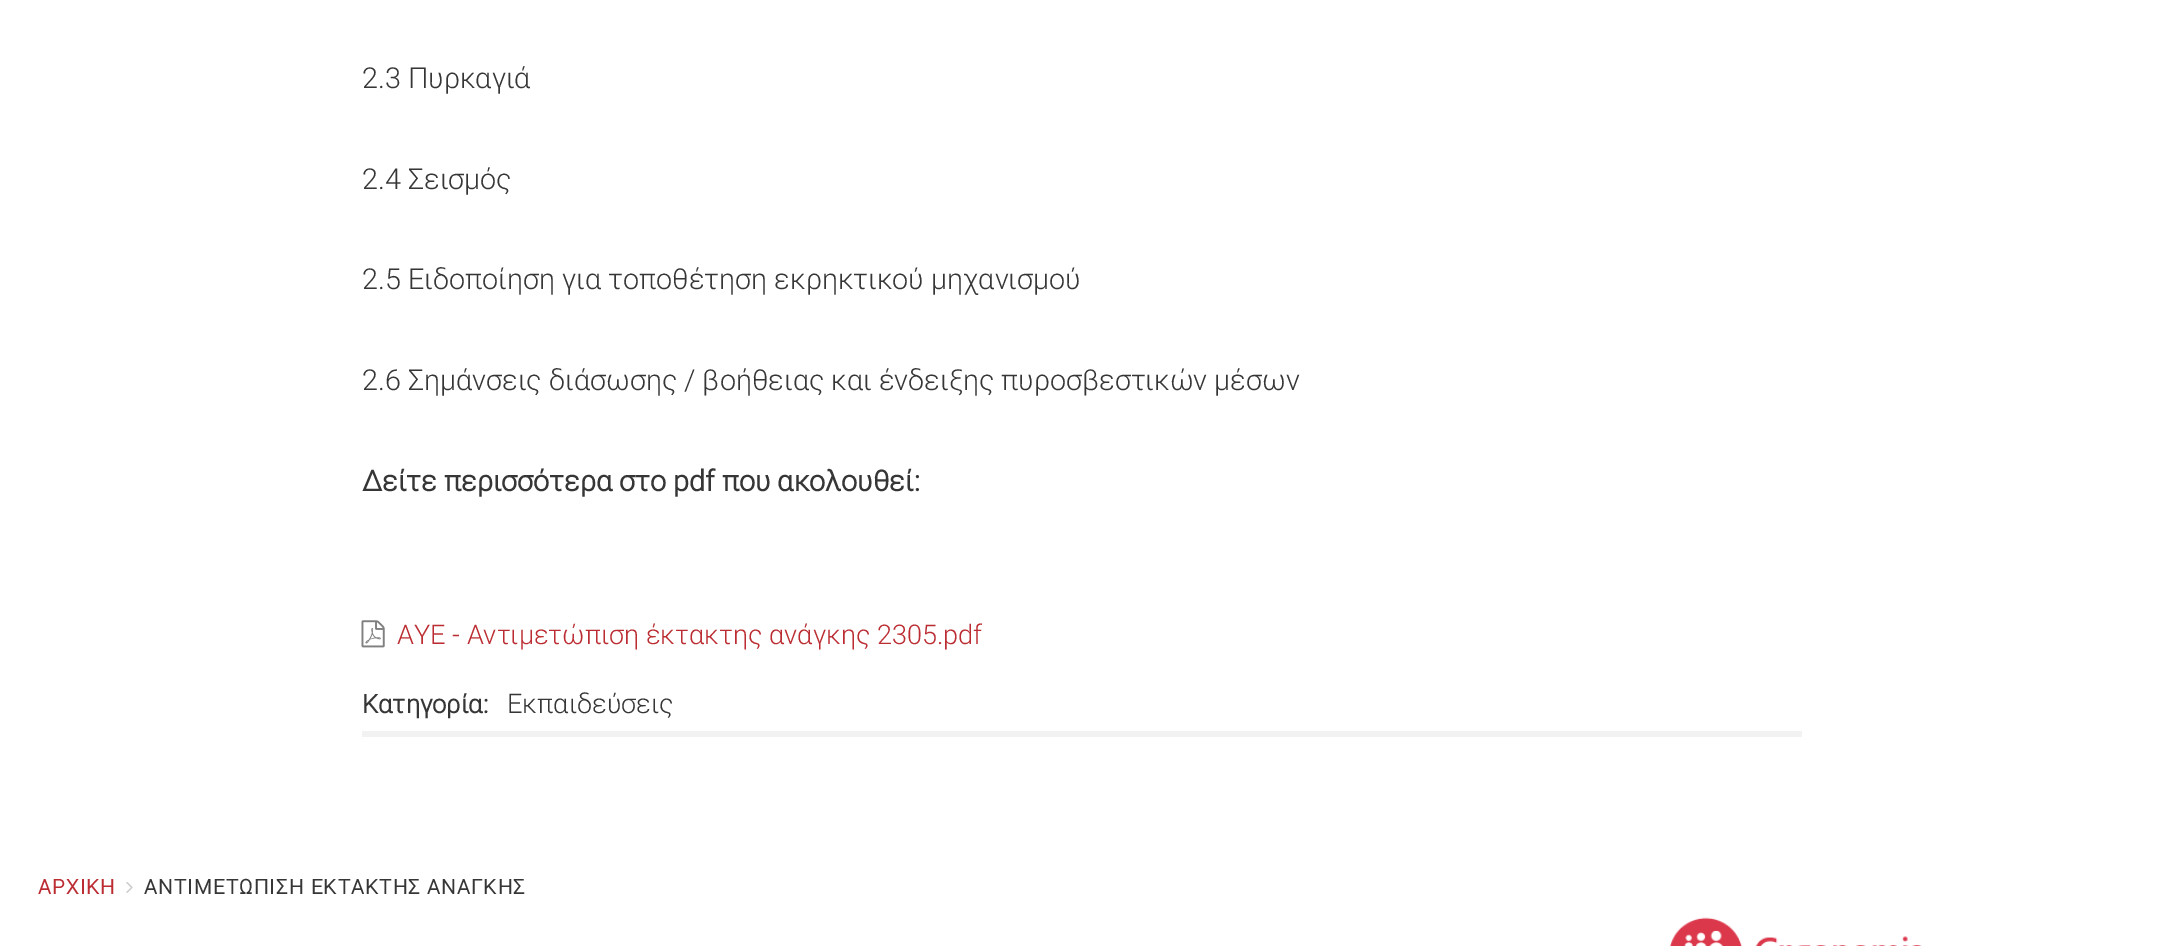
%!PS-Adobe-3.0
%%BoundingBox: 0 0 2162 946
%%LanguageLevel: 3
%%Pages: 1
%%EndComments
%%BeginProlog
/drawimage { 5 dict begin { /h /w /y /x /name } { exch def } forall
  gsave x y translate w h scale
  w h 8 [w 0 0 h 0 0] name (r) file false 3 colorimage grestore end } def
%%EndProlog
%%BeginSetup
<< /PageSize [2162 946] >> setpagedevice
%%EndSetup
%%Page: 1 1
0 946 translate 1 -1 scale
4 setmiterlimit
1 setgray
0 0 2162 946 rectfill
(images/1.raw) 361 620 24 28 drawimage
0.949 setgray
362 731 1440 6 rectfill
(images/2.raw) 126 882 7 11 drawimage
(images/3.raw) 1669 917 253 29 drawimage
/Roboto-Light [28.8 0 0 -28.8 0 0] selectfont
0.212 setgray
362 88 moveto (2.3 Πυρκαγιά) show
362 189 moveto (2.4 Σεισμός) show
362 289 moveto (2.5 Ειδοποίηση για τοποθέτηση εκρηκτικού μηχανισμού) show
362 390 moveto (2.6 Σημάνσεις διάσωσης / βοήθειας και ένδειξης πυροσβεστικών μέσων) show
/Roboto-Bold [28.8 0 0 -28.8 0 0] selectfont
362 491 moveto (Δείτε περισσότερα στο pdf που ακολουθεί:) show
/Roboto-Light [27.1 0 0 -27.1 0 0] selectfont
0.733 0.176 0.196 setrgbcolor
397 644 moveto (ΑΥΕ - Αντιμετώπιση έκτακτης ανάγκης 2305.pdf) show
/Roboto-Bold [25.5 0 0 -25.5 0 0] selectfont
0.212 setgray
362 713 moveto (Κατηγορία:) show
/Roboto-Light [27.1 0 0 -27.1 0 0] selectfont
507 713 moveto (Εκπαιδεύσεις) show
/Roboto-Bold [20.4 0 0 -20.4 0 0] selectfont
0.733 0.176 0.196 setrgbcolor
38 894 moveto 1.25 0 (ΑΡΧΙΚΗ) ashow
0.212 setgray
144 894 moveto 1.25 0 (ΑΝΤΙΜΕΤΩΠΙΣΗ ΕΚΤΑΚΤΗΣ ΑΝΑΓΚΗΣ) ashow
showpage
%%EOF
